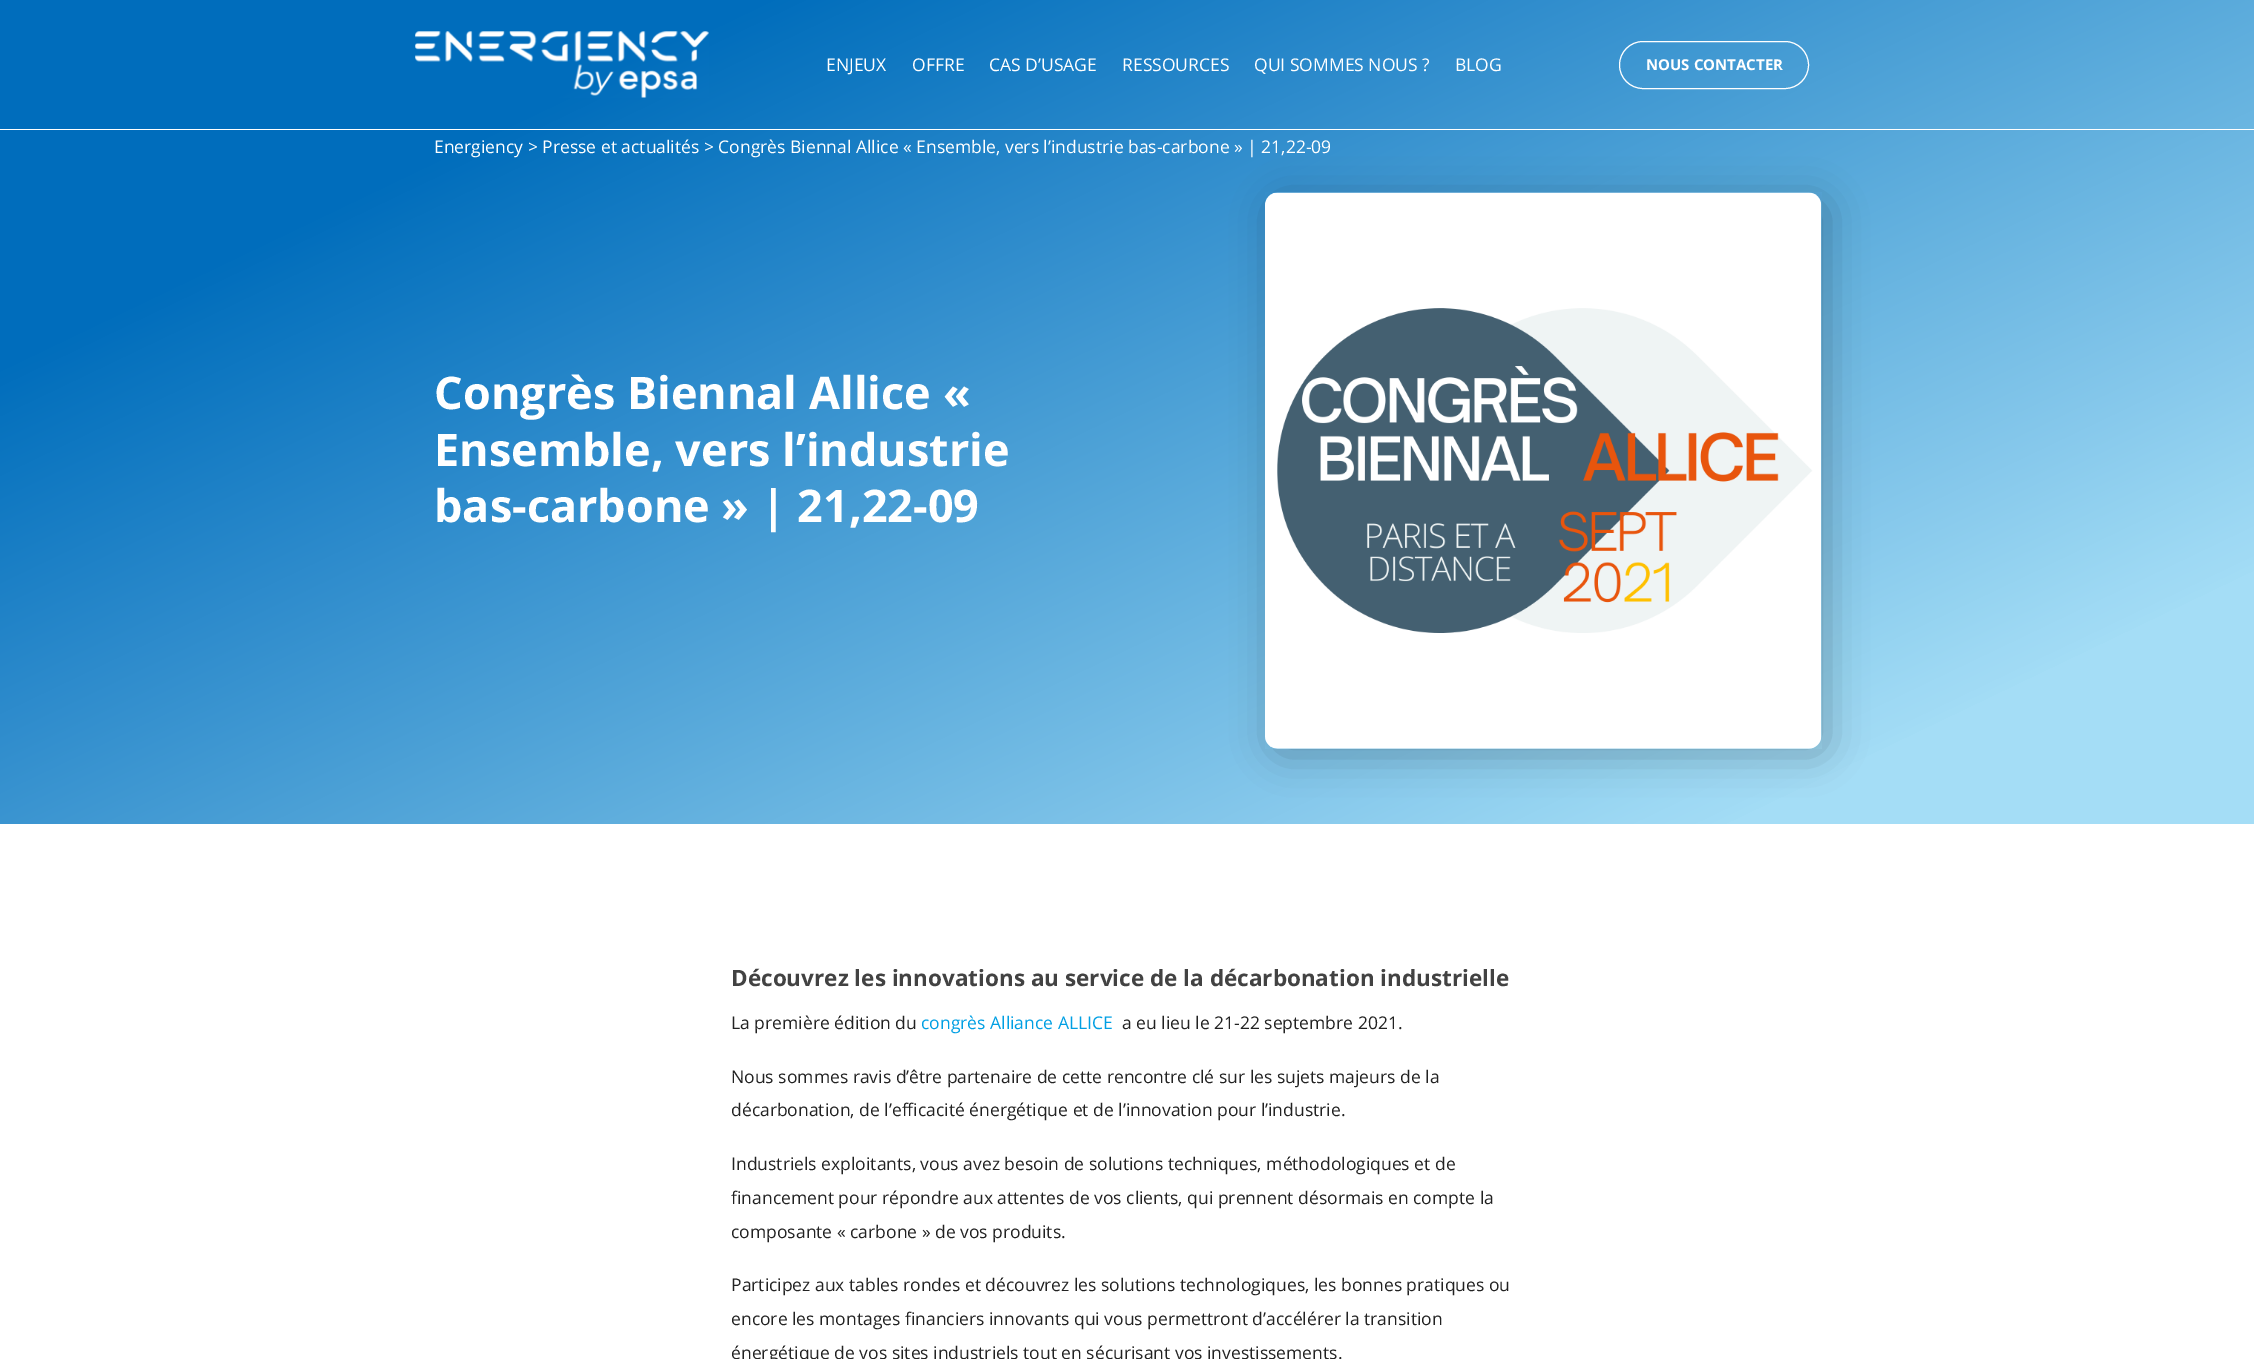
%!PS-Adobe-3.0
%%BoundingBox: 0 0 2254 1359
%%LanguageLevel: 3
%%Pages: 1
%%EndComments
%%BeginProlog
/setalpha { dup .setfillconstantalpha .setstrokeconstantalpha } def
/rrect { 5 dict begin { /r /h /w /y /x } { exch def } forall
  x r add y moveto x w add y 2 copy h add r arct x w add y h add x 1 index r arct
  x y h add x y r arct x y 2 copy exch w add exch r arct closepath end } def
/softshadow { 12 dict begin { /a /b /q /h /w /y /x } { exch def } forall gsave /was 0 def
  9 -2 -9 { dup b mul 4 div /e exch def 1 sub .425 mul 2.718 exch exp 1 add a .99 .min exch div /now exch def
    1 1 now sub 1 was sub div sub setalpha /was now def
    w h .min e 2 mul add 0 gt { x e sub y e sub w e 2 mul add h e 2 mul add
      q e add b .6 mul add w h .min 2 div e add .min 0 .max rrect fill } if } for grestore end } def
/drawimage { 5 dict begin { /h /w /y /x /name } { exch def } forall
  gsave x y translate w h scale
  w h 8 [w 0 0 h 0 0] name (r) file false 3 colorimage grestore end } def
%%EndProlog
%%BeginSetup
<< /PageSize [2254 1359] /PageUsesTransparency true >> setpagedevice
%%EndSetup
%%Page: 1 1
0 .pushpdf14devicefilter
0 1359 translate 1 -1 scale
4 setmiterlimit
1 setgray
0 0 2254 1359 rectfill
gsave newpath 0 0 moveto 2254 0 lineto 2254 824 lineto 0 824 lineto closepath clip newpath
<< /ShadingType 2 /ColorSpace /DeviceRGB /Coords [756 -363 1499 1186] /Extend [true true] /Function << /FunctionType 3 /Domain [0 1] /Functions [<< /FunctionType 2 /Domain [0 1] /C0 [0 0.427 0.737] /C1 [0 0.427 0.737] /N 1 >> << /FunctionType 2 /Domain [0 1] /C0 [0 0.427 0.737] /C1 [0.643 0.867 0.965] /N 1 >> << /FunctionType 2 /Domain [0 1] /C0 [0.643 0.867 0.965] /C1 [0.643 0.867 0.965] /N 1 >>] /Bounds [0.19 0.87] /Encode [0 1 0 1 0 1] >> >> shfill grestore
0 129 2254 1 rectfill
(images/1.raw) 415 31 294 67 drawimage
1619.5 41.5 189 47 23.5 rrect stroke
0 setgray
1271 199 557 556 13 19 0.25 softshadow
(images/2.raw) 1265 192 557 557 drawimage
/OpenSans-Regular [17.5 0 0 -17.5 0 0] selectfont
1 setgray
826 71 moveto (ENJEUX) show
912 71 moveto (OFFRE) show
989 71 moveto (CAS D’USAGE) show
1122 71 moveto (RESSOURCES) show
1254 71 moveto (QUI SOMMES NOUS ?) show
1455 71 moveto (BLOG) show
/OpenSans-Bold [15 0 0 -15 0 0] selectfont
1646 70 moveto (NOUS CONTACTER) show
/OpenSans-Regular [17.5 0 0 -17.5 0 0] selectfont
434 153 moveto (Energiency > Presse et actualités > Congrès Biennal Allice « Ensemble, vers l’industrie bas-carbone » | 21,22-09) show
/OpenSans-Bold [45 0 0 -45 0 0] selectfont
434 409 moveto (Congrès Biennal Allice «) show
434 466 moveto (Ensemble, vers l’industrie) show
434 522 moveto (bas-carbone » | 21,22-09) show
/OpenSans-Bold [22.5 0 0 -22.5 0 0] selectfont
0.259 setgray
731 986 moveto (Découvrez les innovations au service de la décarbonation industrielle) show
/OpenSans-Regular [17.5 0 0 -17.5 0 0] selectfont
0.133 setgray
731 1029 moveto (La première édition du) show
0 0.624 0.89 setrgbcolor
921 1029 moveto (congrès Alliance ALLICE) show
0.133 setgray
1122 1029 moveto (a eu lieu le 21-22 septembre 2021.) show
731 1083 moveto (Nous sommes ravis d’être partenaire de cette rencontre clé sur les sujets majeurs de la) show
731 1116 moveto (décarbonation, de l’efficacité énergétique et de l’innovation pour l’industrie.) show
731 1170 moveto (Industriels exploitants, vous avez besoin de solutions techniques, méthodologiques et de) show
731 1204 moveto (financement pour répondre aux attentes de vos clients, qui prennent désormais en compte la) show
731 1238 moveto (composante « carbone » de vos produits.) show
731 1291 moveto (Participez aux tables rondes et découvrez les solutions technologiques, les bonnes pratiques ou) show
731 1325 moveto (encore les montages financiers innovants qui vous permettront d’accélérer la transition) show
731 1359 moveto (énergétique de vos sites industriels tout en sécurisant vos investissements.) show
.poppdf14devicefilter showpage
%%EOF
